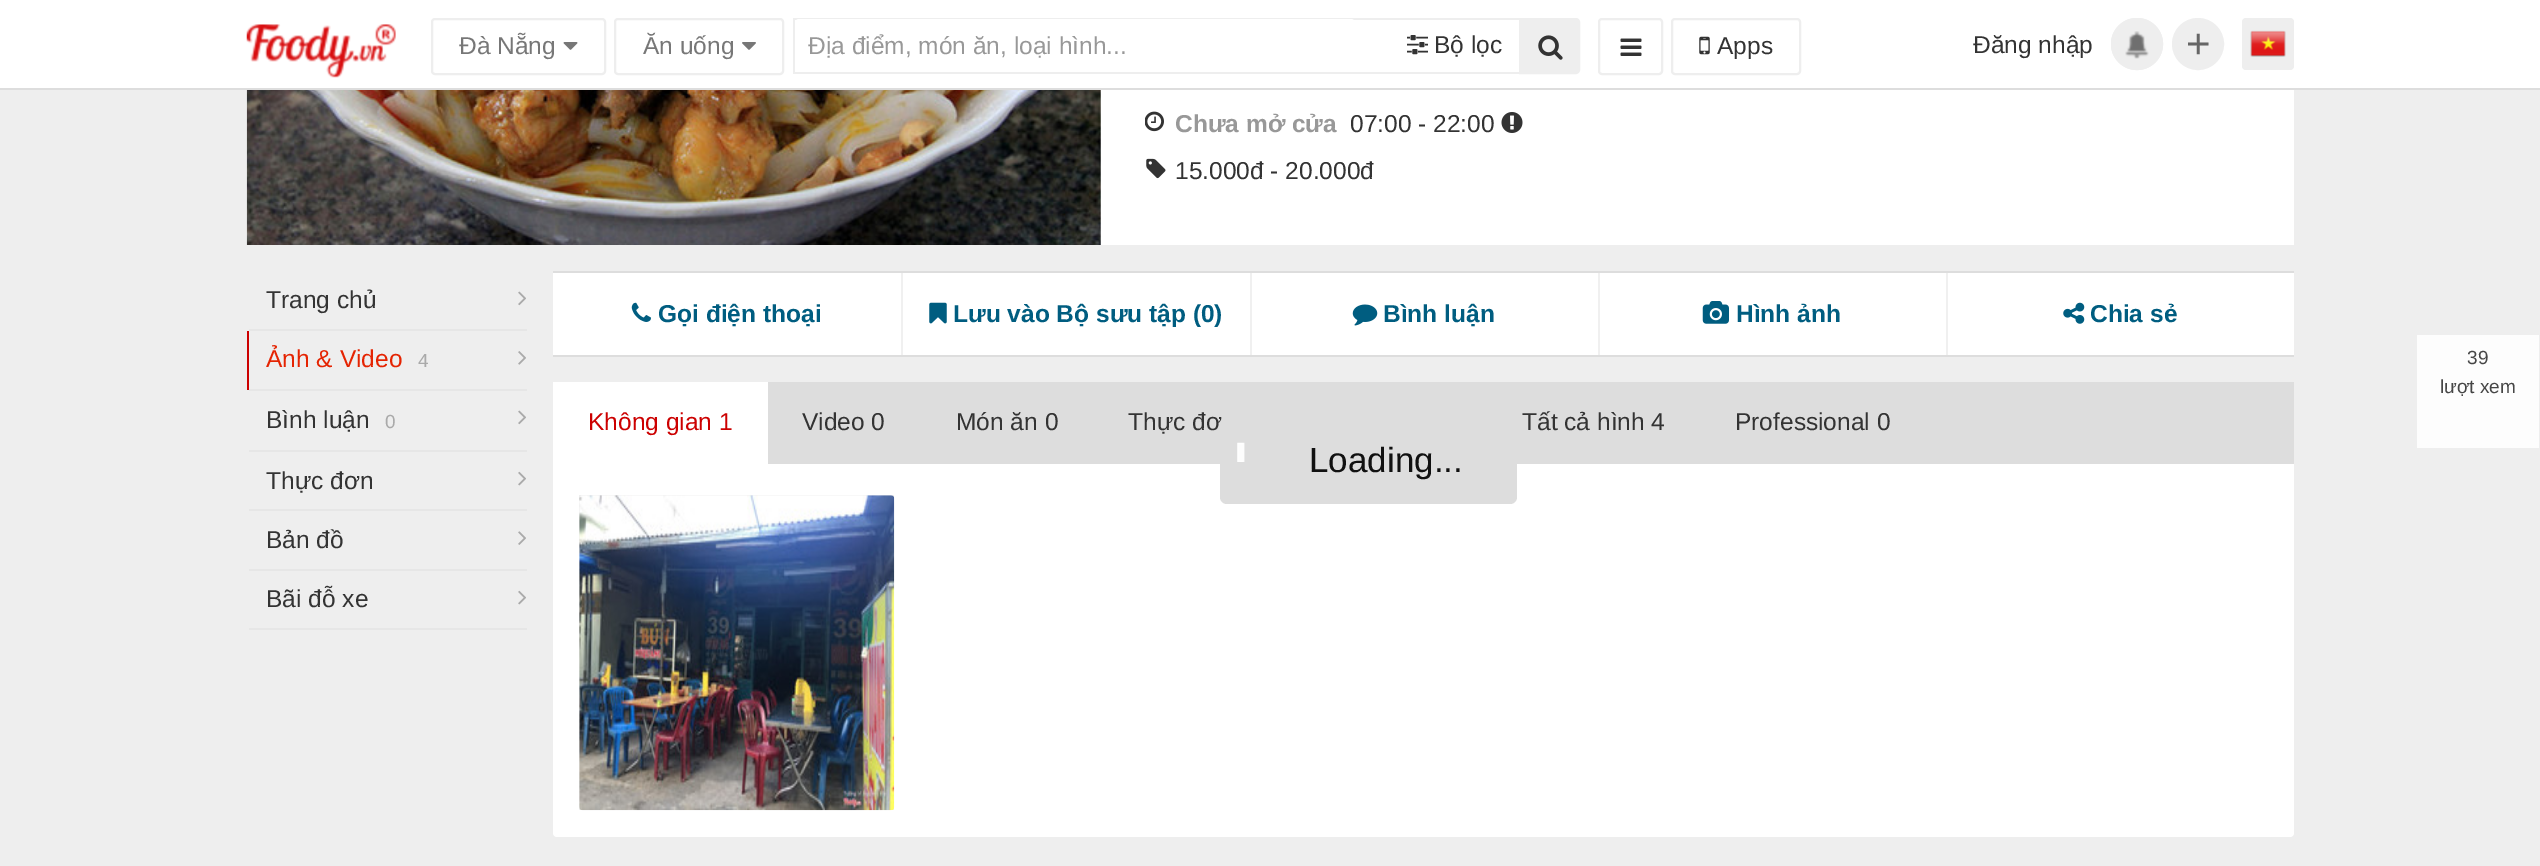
%!PS-Adobe-3.0
%%BoundingBox: 0 0 2540 866
%%LanguageLevel: 3
%%Pages: 1
%%EndComments
%%BeginProlog
/rrect { 5 dict begin { /r /h /w /y /x } { exch def } forall
  x r add y moveto x w add y 2 copy h add r arct x w add y h add x 1 index r arct
  x y h add x y r arct x y 2 copy exch w add exch r arct closepath end } def
/drawimage { 5 dict begin { /h /w /y /x /name } { exch def } forall
  gsave x y translate w h scale
  w h 8 [w 0 0 h 0 0] name (r) file false 3 colorimage grestore end } def
%%EndProlog
%%BeginSetup
<< /PageSize [2540 866] >> setpagedevice
%%EndSetup
%%Page: 1 1
0 866 translate 1 -1 scale
4 setmiterlimit
0.933 setgray
0 0 2540 866 rectfill
1 setgray
0 0 2540 88 rectfill
0.867 setgray
0 88 2540 2 rectfill
(images/1.raw) 246 24 150 54 drawimage
0.933 setgray
2 setlinewidth
432 19 173 55 3 rrect stroke
(images/2.raw) 563 42 15 8 drawimage
615 19 168 55 3 rrect stroke
(images/3.raw) 742 42 14 8 drawimage
793 18 726 2 rectfill
793 72 726 2 rectfill
793 18 2 56 rectfill
1 setgray
795 19 560 53 4 rrect fill
(images/4.raw) 1407 35 21 20 drawimage
0.933 setgray
newpath 1520 19 moveto 1576 19 lineto 1577.5 19 1579 20.5 1579 22 curveto 1579 70 lineto 1579 71.5 1577.5 73 1576 73 curveto 1520 73 lineto closepath gsave fill grestore
stroke
(images/5.raw) 1538 35 25 25 drawimage
1599 19 63 55 3 rrect stroke
(images/6.raw) 1620 38 22 18 drawimage
1672 19 128 55 3 rrect stroke
(images/7.raw) 1699 36 11 19 drawimage
newpath 2137 44 26 0 360 arc closepath fill
(images/8.raw) 2125 31 24 28 drawimage
newpath 2137 44 25 0 360 arc closepath stroke
newpath 2198 44 25 0 360 arc closepath gsave fill grestore
stroke
2242 18 52 52 4 rrect fill
(images/9.raw) 2250 30 36 27 drawimage
1 setgray
1100 90 1194 155 rectfill
(images/10.raw) 246 90 855 155 drawimage
(images/11.raw) 1145 111 19 21 drawimage
(images/12.raw) 1501 112 22 21 drawimage
(images/13.raw) 1146 158 20 21 drawimage
0.992 setgray
2417 335 122 113 rectfill
0.902 setgray
247 329 280 2 rectfill
0.933 setgray
247 329 2 2 rectfill
(images/14.raw) 518 291 8 15 drawimage
0.902 setgray
247 389 280 2 rectfill
0.8 0 0 setrgbcolor
247 331 2 59 rectfill
(images/15.raw) 518 351 8 14 drawimage
0.902 setgray
247 450 280 2 rectfill
0.933 setgray
247 390 2 62 rectfill
(images/14.raw) 518 410 8 15 drawimage
0.902 setgray
247 509 280 2 rectfill
0.933 setgray
247 509 2 2 rectfill
(images/16.raw) 518 471 8 15 drawimage
0.902 setgray
247 569 280 2 rectfill
0.933 setgray
247 569 2 2 rectfill
(images/17.raw) 518 531 8 14 drawimage
0.902 setgray
247 628 280 2 rectfill
0.933 setgray
247 628 2 2 rectfill
(images/16.raw) 518 590 8 15 drawimage
1 setgray
553 273 1741 82 rectfill
0.867 setgray
553 271 1741 2 rectfill
553 355 1741 2 rectfill
0.941 setgray
901 273 2 82 rectfill
(images/18.raw) 631 302 20 20 drawimage
1250 273 2 82 rectfill
(images/19.raw) 929 302 18 22 drawimage
1598 273 2 82 rectfill
(images/20.raw) 1352 304 26 22 drawimage
1946 273 2 82 rectfill
(images/21.raw) 1702 301 27 23 drawimage
(images/22.raw) 2063 302 22 22 drawimage
1 setgray
553 382 1741 455 4 rrect fill
0.867 setgray
768 382 1526 82 rectfill
1 setgray
553 382 3 3 rectfill
0.933 setgray
579 495 315 315 rectfill
(images/24.raw) 579 495 316 316 drawimage
gsave
459 19 96 55 rectclip
/LiberationSans-Regular [24.5 0 0 -24.5 0 0] selectfont
0.467 setgray
459 54 moveto (Đà Nẵng) show
grestore
/LiberationSans-Regular [24.5 0 0 -24.5 0 0] selectfont
0.467 setgray
643 54 moveto (Ăn uống) show
0.596 setgray
808 54 moveto (Địa điểm, món ăn, loại hình...) show
0.2 setgray
1434 53 moveto (Bộ lọc) show
1717 54 moveto (Apps) show
1973 53 moveto (Đăng nhập) show
/LiberationSans-Regular [42 0 0 -42 0 0] selectfont
0.4 setgray
2186 58 moveto (+) show
/LiberationSans-Bold [24.5 0 0 -24.5 0 0] selectfont
0.596 setgray
1175 132 moveto (Chưa mở cửa) show
/LiberationSans-Regular [24.5 0 0 -24.5 0 0] selectfont
0.2 setgray
1350 132 moveto (07:00 - 22:00) show
1175 179 moveto (15.000đ - 20.000đ) show
/LiberationSans-Regular [19 0 0 -19 0 0] selectfont
0.275 setgray
2467 364 moveto (39) show
2440 393 moveto (lượt xem) show
/LiberationSans-Regular [24.5 0 0 -24.5 0 0] selectfont
0.2 setgray
266 308 moveto (Trang chủ) show
0.898 0.141 0.008 setrgbcolor
266 367 moveto (Ảnh & Video) show
/LiberationSans-Regular [19 0 0 -19 0 0] selectfont
0.667 setgray
418 367 moveto (4) show
/LiberationSans-Regular [24.5 0 0 -24.5 0 0] selectfont
0.2 setgray
266 428 moveto (Bình luận) show
/LiberationSans-Regular [19 0 0 -19 0 0] selectfont
0.667 setgray
385 428 moveto (0) show
/LiberationSans-Regular [24.5 0 0 -24.5 0 0] selectfont
0.2 setgray
266 489 moveto (Thực đơn) show
266 548 moveto (Bản đồ) show
266 607 moveto (Bãi đỗ xe) show
/LiberationSans-Bold [24.5 0 0 -24.5 0 0] selectfont
0 0.365 0.502 setrgbcolor
658 322 moveto (Gọi điện thoại) show
953 322 moveto (Lưu vào Bộ sưu tập \(0\)) show
1383 322 moveto (Bình luận) show
1736 322 moveto (Hình ảnh) show
2090 322 moveto (Chia sẻ) show
/LiberationSans-Regular [24.5 0 0 -24.5 0 0] selectfont
0.8 0 0 setrgbcolor
588 430 moveto (Không gian 1) show
0.2 setgray
802 430 moveto (Video 0) show
956 430 moveto (Món ăn 0) show
1128 430 moveto (Thực đơ) show
1522 430 moveto (Tất cả hình 4) show
1735 430 moveto (Professional 0) show
0.867 setgray
1220 417 297 87 7 rrect fill
(images/23.raw) 1237 442 8 20 drawimage
/LiberationSans-Regular [35 0 0 -35 0 0] selectfont
0.067 setgray
1309 472 moveto (Loading...) show
showpage
%%EOF
